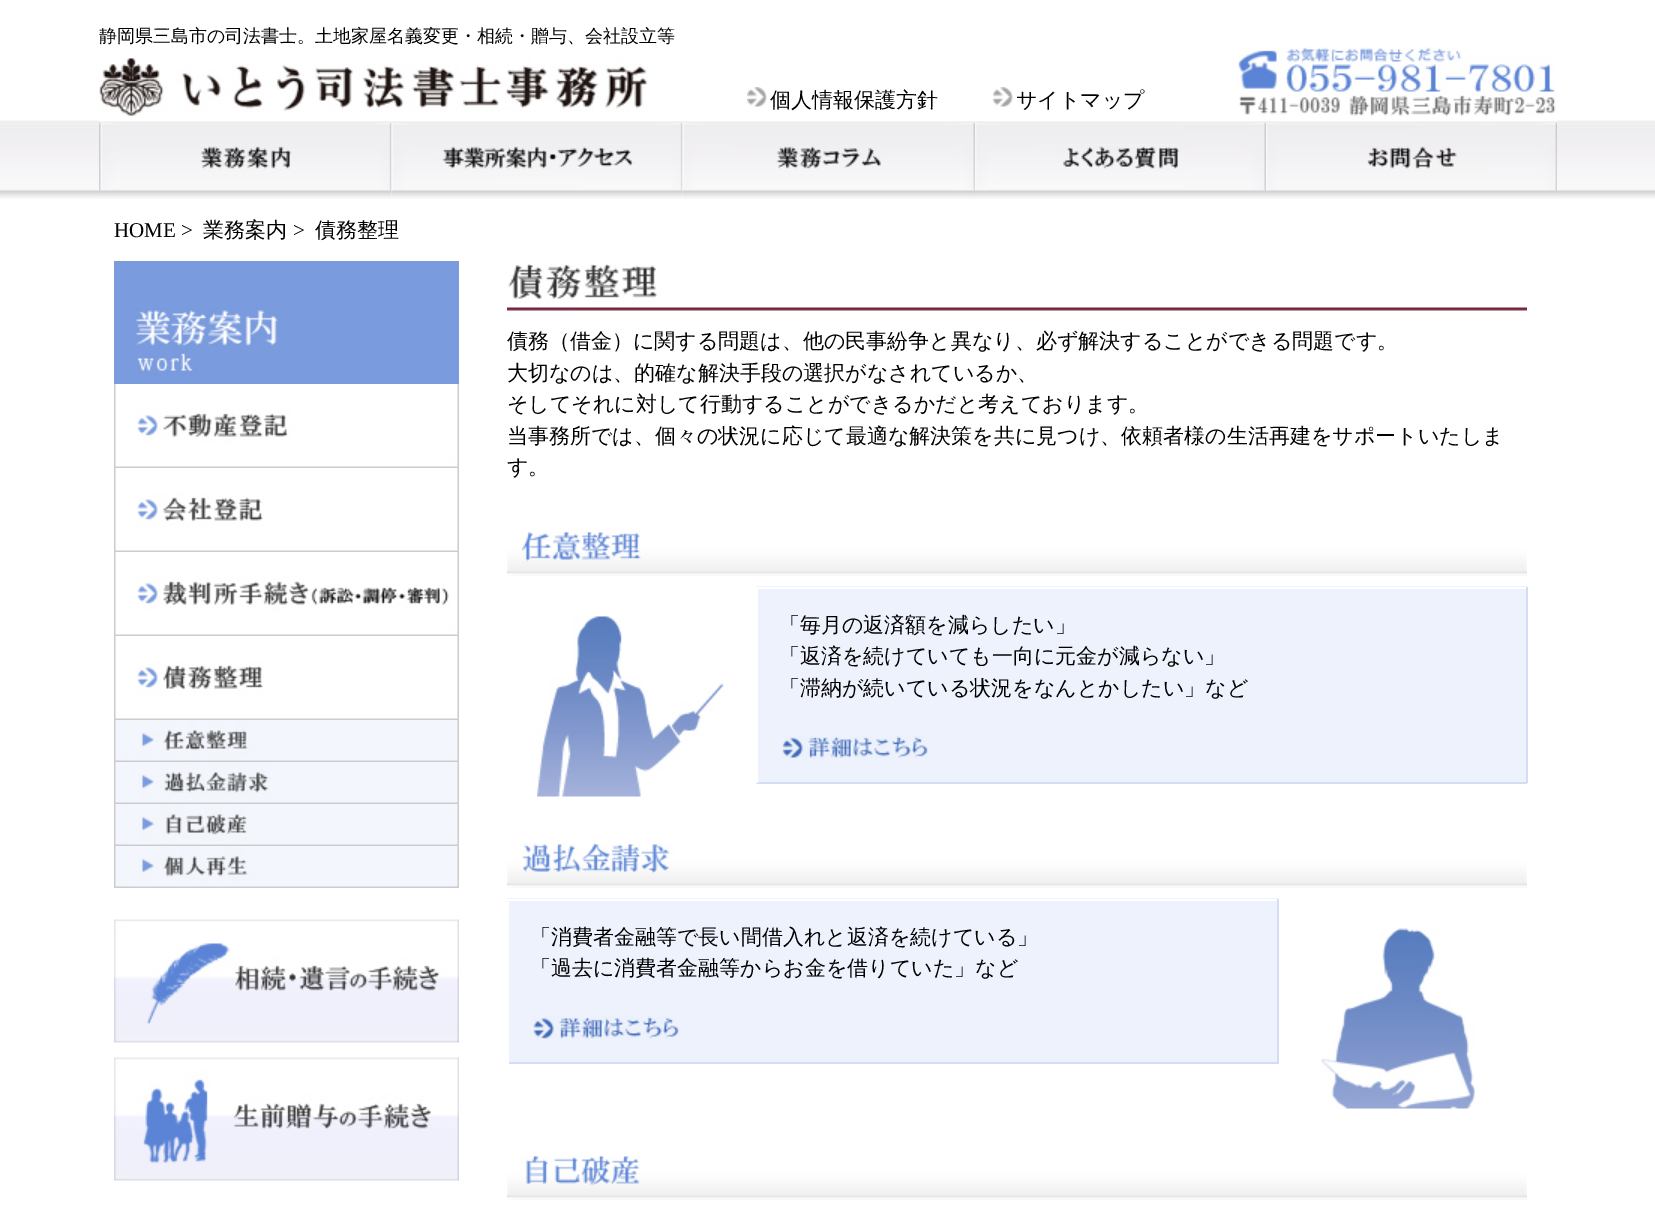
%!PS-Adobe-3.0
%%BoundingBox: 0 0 1655 1206
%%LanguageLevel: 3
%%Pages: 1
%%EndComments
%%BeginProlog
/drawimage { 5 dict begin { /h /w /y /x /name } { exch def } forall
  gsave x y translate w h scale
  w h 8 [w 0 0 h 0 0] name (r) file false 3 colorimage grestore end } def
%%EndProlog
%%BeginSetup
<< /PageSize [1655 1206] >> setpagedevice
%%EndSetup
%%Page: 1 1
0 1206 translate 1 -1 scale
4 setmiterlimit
1 setgray
0 0 1655 1206 rectfill
(images/1.raw) 0 120 1655 79 drawimage
99 120 1458 79 rectfill
(images/2.raw) 99 58 549 58 drawimage
(images/3.raw) 747 87 20 20 drawimage
(images/4.raw) 993 87 20 20 drawimage
(images/5.raw) 1238 47 318 69 drawimage
(images/6.raw) 99 121 293 78 drawimage
(images/7.raw) 391 121 292 78 drawimage
(images/8.raw) 682 121 293 78 drawimage
(images/9.raw) 975 121 291 78 drawimage
(images/10.raw) 1266 121 291 78 drawimage
(images/11.raw) 114 261 345 123 drawimage
(images/12.raw) 114 384 345 84 drawimage
(images/13.raw) 114 468 345 84 drawimage
(images/14.raw) 114 552 345 84 drawimage
(images/15.raw) 114 636 345 84 drawimage
(images/16.raw) 114 720 345 42 drawimage
(images/17.raw) 114 762 345 42 drawimage
(images/18.raw) 114 804 345 42 drawimage
(images/19.raw) 114 846 345 42 drawimage
(images/20.raw) 114 919 345 124 drawimage
(images/21.raw) 114 1057 345 124 drawimage
(images/22.raw) 507 263 1020 48 drawimage
(images/23.raw) 507 531 1020 45 drawimage
(images/24.raw) 537 616 187 181 drawimage
0.933 0.949 0.992 setrgbcolor
756 586 771 196 rectfill
1 setgray
756 587 771 2 rectfill
0.827 0.871 0.957 setrgbcolor
1526 587 2 196 rectfill
756 782 771 2 rectfill
1 setgray
756 587 2 196 rectfill
(images/25.raw) 782 735 146 24 drawimage
(images/26.raw) 507 843 1020 45 drawimage
0.933 0.949 0.992 setrgbcolor
507 898 771 164 rectfill
1 setgray
507 899 771 2 rectfill
0.827 0.871 0.957 setrgbcolor
1277 899 2 165 rectfill
507 1062 771 2 rectfill
1 setgray
507 899 2 165 rectfill
(images/27.raw) 533 1016 146 23 drawimage
(images/28.raw) 1321 928 154 181 drawimage
(images/29.raw) 507 1155 1020 45 drawimage
/WenQuanYiZenHei-Medium [18 0 0 -18 0 0] selectfont
0 setgray
99 42 moveto (静岡県三島市の司法書士。土地家屋名義変更・相続・贈与、会社設立等) show
/WenQuanYiZenHei-Medium [21 0 0 -21 0 0] selectfont
770 107 moveto (個人情報保護方針) show
1016 107 moveto (サイトマップ) show
/LiberationSerif-Regular [21 0 0 -21 0 0] selectfont
114 237 moveto (HOME >) show
/WenQuanYiZenHei-Medium [21 0 0 -21 0 0] selectfont
203 237 moveto (業務案内) show
/LiberationSerif-Regular [21 0 0 -21 0 0] selectfont
293 237 moveto (>) show
/WenQuanYiZenHei-Medium [21 0 0 -21 0 0] selectfont
315 237 moveto (債務整理) show
507 348 moveto (債務（借金）に関する問題は、他の民事紛争と異なり、必ず解決することができる問題です。) show
507 380 moveto (大切なのは、的確な解決手段の選択がなされているか、) show
507 411 moveto (そしてそれに対して行動することができるかだと考えております。) show
507 443 moveto (当事務所では、個々の状況に応じて最適な解決策を共に見つけ、依頼者様の生活再建をサポートいたしま) show
507 474 moveto (す。) show
779 632 moveto (「毎月の返済額を減らしたい」) show
779 663 moveto (「返済を続けていても一向に元金が減らない」) show
779 695 moveto (「滞納が続いている状況をなんとかしたい」など) show
530 944 moveto (「消費者金融等で長い間借入れと返済を続けている」) show
530 975 moveto (「過去に消費者金融等からお金を借りていた」など) show
showpage
%%EOF
